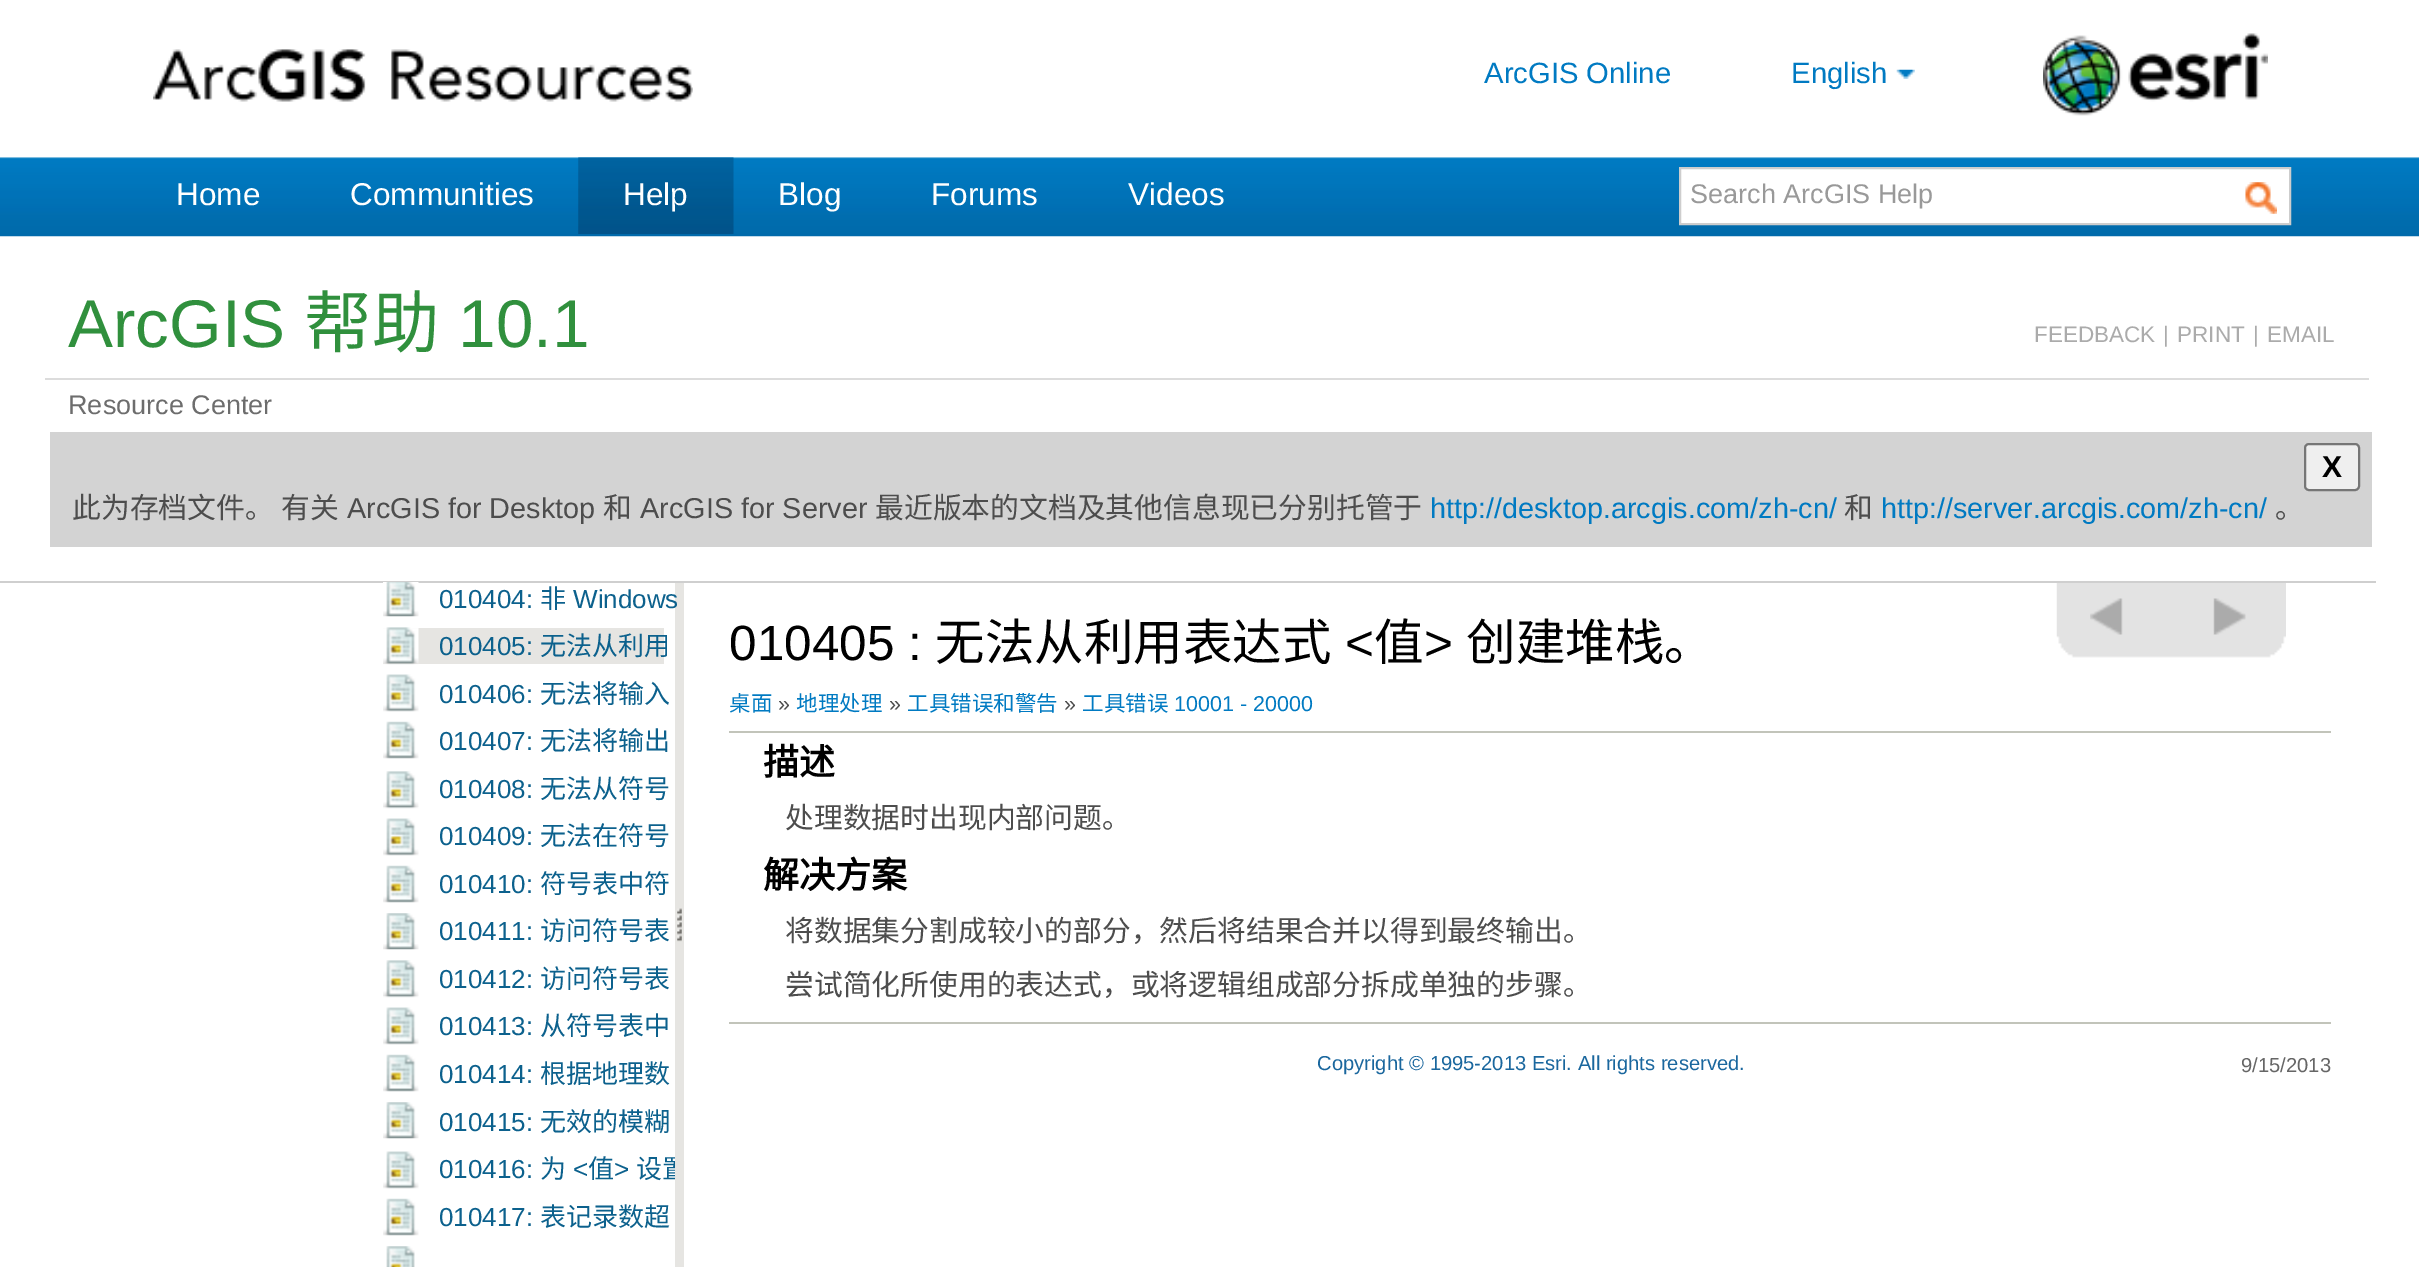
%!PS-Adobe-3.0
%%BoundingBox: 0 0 2419 1267
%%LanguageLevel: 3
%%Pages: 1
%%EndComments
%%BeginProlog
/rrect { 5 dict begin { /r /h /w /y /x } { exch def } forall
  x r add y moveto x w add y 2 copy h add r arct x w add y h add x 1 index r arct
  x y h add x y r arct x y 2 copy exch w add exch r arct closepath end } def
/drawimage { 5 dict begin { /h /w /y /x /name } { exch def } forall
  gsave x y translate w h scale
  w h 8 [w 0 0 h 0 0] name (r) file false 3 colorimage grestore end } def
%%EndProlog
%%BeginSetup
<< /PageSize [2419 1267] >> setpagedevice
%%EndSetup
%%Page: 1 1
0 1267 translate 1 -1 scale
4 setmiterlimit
1 setgray
0 0 2419 1267 rectfill
(images/1.raw) 0 157 2419 80 drawimage
(images/2.raw) 153 49 540 53 drawimage
(images/3.raw) 1896 69 19 10 drawimage
(images/4.raw) 2043 33 225 83 drawimage
(images/5.raw) 578 157 156 77 drawimage
newpath 1680 168 moveto 2290 168 lineto 2290 224 lineto 1680 224 lineto closepath gsave fill grestore
0.804 setgray
2 setlinewidth
stroke
(images/6.raw) 2245 182 32 32 drawimage
0.863 setgray
45 378 2324 2 rectfill
0.827 setgray
50 432 2322 115 rectfill
0.937 setgray
2305 444 54 46 4 rrect gsave fill grestore
0.463 setgray
stroke
(images/7.raw) 2056 583 230 75 drawimage
(images/8.raw) 2090 598 33 37 drawimage
(images/9.raw) 2213 598 33 37 drawimage
0.812 setgray
0 581 2376 2 rectfill
(images/10.raw) 383 582 36 35 drawimage
0.902 0.898 0.886 setrgbcolor
383 628 281 36 rectfill
(images/11.raw) 383 627 36 38 drawimage
(images/12.raw) 383 674 36 38 drawimage
(images/13.raw) 383 721 36 38 drawimage
(images/14.raw) 383 771 36 38 drawimage
(images/15.raw) 383 818 36 38 drawimage
(images/16.raw) 383 865 36 38 drawimage
(images/17.raw) 383 913 36 37 drawimage
(images/14.raw) 383 960 36 38 drawimage
(images/12.raw) 383 1007 36 38 drawimage
(images/18.raw) 383 1054 36 38 drawimage
(images/17.raw) 383 1102 36 37 drawimage
(images/19.raw) 383 1151 36 38 drawimage
(images/13.raw) 383 1198 36 38 drawimage
(images/20.raw) 386 1246 29 21 drawimage
675 583 9 684 rectfill
(images/21.raw) 677 908 5 34 drawimage
0.761 0.769 0.729 setrgbcolor
729 731 1602 2 rectfill
729 1022 1602 2 rectfill
/LiberationSans-Regular [29.25 0 0 -29.25 0 0] selectfont
0 0.478 0.761 setrgbcolor
1484 83 moveto (ArcGIS Online) show
1791 83 moveto (English) show
/LiberationSans-Regular [31.5 0 0 -31.5 0 0] selectfont
1 setgray
176 205 moveto (Home) show
350 205 moveto (Communities) show
623 205 moveto (Help) show
778 205 moveto (Blog) show
931 205 moveto (Forums) show
1128 205 moveto (Videos) show
/LiberationSans-Regular [27 0 0 -27 0 0] selectfont
0.6 setgray
1690 203 moveto (Search ArcGIS Help) show
/LiberationSans-Regular [67.5 0 0 -67.5 0 0] selectfont
0.188 0.565 0.239 setrgbcolor
68 347 moveto (ArcGIS) show
/NotoSansCJKSC-Regular [67.5 0 0 -67.5 0 0] selectfont
304 347 moveto (帮助) show
/LiberationSans-Regular [67.5 0 0 -67.5 0 0] selectfont
458 347 moveto (10.1) show
/LiberationSans-Regular [22.5 0 0 -22.5 0 0] selectfont
0.671 setgray
2034 342 moveto (FEEDBACK) show
2163 342 moveto (|) show
2177 342 moveto (PRINT) show
2253 342 moveto (|) show
2267 342 moveto (EMAIL) show
/LiberationSans-Regular [27 0 0 -27 0 0] selectfont
0.427 setgray
68 414 moveto (Resource Center) show
/LiberationSans-Bold [30 0 0 -30 0 0] selectfont
0 setgray
2322 477 moveto (X) show
/NotoSansCJKSC-Regular [28.8 0 0 -28.8 0 0] selectfont
0.302 setgray
72 518 moveto (此为存档文件。) show
281 518 moveto (有关) show
/LiberationSans-Regular [28.8 0 0 -28.8 0 0] selectfont
347 518 moveto (ArcGIS for Desktop) show
/NotoSansCJKSC-Regular [28.8 0 0 -28.8 0 0] selectfont
603 518 moveto (和) show
/LiberationSans-Regular [28.8 0 0 -28.8 0 0] selectfont
640 518 moveto (ArcGIS for Server) show
/NotoSansCJKSC-Regular [28.8 0 0 -28.8 0 0] selectfont
875 518 moveto (最近版本的文档及其他信息现已分别托管于) show
/LiberationSans-Regular [28.8 0 0 -28.8 0 0] selectfont
0 0.478 0.761 setrgbcolor
1430 518 moveto (http://desktop.arcgis.com/zh-cn/) show
/NotoSansCJKSC-Regular [28.8 0 0 -28.8 0 0] selectfont
0.302 setgray
1844 518 moveto (和) show
/LiberationSans-Regular [28.8 0 0 -28.8 0 0] selectfont
0 0.478 0.761 setrgbcolor
1881 518 moveto (http://server.arcgis.com/zh-cn/) show
/NotoSansCJKSC-Regular [28.8 0 0 -28.8 0 0] selectfont
0.302 setgray
2275 518 moveto (。) show
/LiberationSans-Regular [26 0 0 -26 0 0] selectfont
0.047 0.38 0.553 setrgbcolor
439 608 moveto (010404:) show
/NotoSansCJKSC-Regular [26 0 0 -26 0 0] selectfont
540 608 moveto (非) show
/LiberationSans-Regular [26 0 0 -26 0 0] selectfont
573 608 moveto (Windows) show
439 655 moveto (010405:) show
/NotoSansCJKSC-Regular [26 0 0 -26 0 0] selectfont
540 655 moveto (无法从利用) show
/LiberationSans-Regular [26 0 0 -26 0 0] selectfont
439 703 moveto (010406:) show
/NotoSansCJKSC-Regular [26 0 0 -26 0 0] selectfont
540 703 moveto (无法将输入) show
/LiberationSans-Regular [26 0 0 -26 0 0] selectfont
439 750 moveto (010407:) show
/NotoSansCJKSC-Regular [26 0 0 -26 0 0] selectfont
540 750 moveto (无法将输出) show
/LiberationSans-Regular [26 0 0 -26 0 0] selectfont
439 798 moveto (010408:) show
/NotoSansCJKSC-Regular [26 0 0 -26 0 0] selectfont
540 798 moveto (无法从符号) show
/LiberationSans-Regular [26 0 0 -26 0 0] selectfont
439 845 moveto (010409:) show
/NotoSansCJKSC-Regular [26 0 0 -26 0 0] selectfont
540 845 moveto (无法在符号) show
/LiberationSans-Regular [26 0 0 -26 0 0] selectfont
439 893 moveto (010410:) show
/NotoSansCJKSC-Regular [26 0 0 -26 0 0] selectfont
540 893 moveto (符号表中符) show
/LiberationSans-Regular [26 0 0 -26 0 0] selectfont
439 940 moveto (010411:) show
/NotoSansCJKSC-Regular [26 0 0 -26 0 0] selectfont
540 940 moveto (访问符号表) show
/LiberationSans-Regular [26 0 0 -26 0 0] selectfont
439 988 moveto (010412:) show
/NotoSansCJKSC-Regular [26 0 0 -26 0 0] selectfont
540 988 moveto (访问符号表) show
/LiberationSans-Regular [26 0 0 -26 0 0] selectfont
439 1035 moveto (010413:) show
/NotoSansCJKSC-Regular [26 0 0 -26 0 0] selectfont
540 1035 moveto (从符号表中) show
/LiberationSans-Regular [26 0 0 -26 0 0] selectfont
439 1083 moveto (010414:) show
/NotoSansCJKSC-Regular [26 0 0 -26 0 0] selectfont
540 1083 moveto (根据地理数) show
/LiberationSans-Regular [26 0 0 -26 0 0] selectfont
439 1131 moveto (010415:) show
/NotoSansCJKSC-Regular [26 0 0 -26 0 0] selectfont
540 1131 moveto (无效的模糊) show
/LiberationSans-Regular [26 0 0 -26 0 0] selectfont
439 1178 moveto (010416:) show
/NotoSansCJKSC-Regular [26 0 0 -26 0 0] selectfont
540 1178 moveto (为) show
/LiberationSans-Regular [26 0 0 -26 0 0] selectfont
573 1178 moveto (<) show
/NotoSansCJKSC-Regular [26 0 0 -26 0 0] selectfont
588 1178 moveto (值) show
/LiberationSans-Regular [26 0 0 -26 0 0] selectfont
614 1178 moveto (>) show
gsave
0 583 675 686 rectclip
/NotoSansCJKSC-Regular [26 0 0 -26 0 0] selectfont
636 1178 moveto (设置) show
grestore
439 1226 moveto (010417:) show
/NotoSansCJKSC-Regular [26 0 0 -26 0 0] selectfont
540 1226 moveto (表记录数超) show
/LiberationSans-Regular [49.5 0 0 -49.5 0 0] selectfont
0 setgray
729 660 moveto (010405 :) show
/NotoSansCJKSC-Regular [49.5 0 0 -49.5 0 0] selectfont
935 660 moveto (无法从利用表达式) show
/LiberationSans-Regular [49.5 0 0 -49.5 0 0] selectfont
1345 660 moveto (<) show
/NotoSansCJKSC-Regular [49.5 0 0 -49.5 0 0] selectfont
1374 660 moveto (值) show
/LiberationSans-Regular [49.5 0 0 -49.5 0 0] selectfont
1424 660 moveto (>) show
/NotoSansCJKSC-Regular [49.5 0 0 -49.5 0 0] selectfont
1466 660 moveto (创建堆栈。) show
/NotoSansCJKSC-Regular [21.5 0 0 -21.5 0 0] selectfont
0 0.478 0.761 setrgbcolor
729 711 moveto (桌面) show
/LiberationSans-Regular [21.5 0 0 -21.5 0 0] selectfont
0.302 setgray
778 711 moveto (») show
/NotoSansCJKSC-Regular [21.5 0 0 -21.5 0 0] selectfont
0 0.478 0.761 setrgbcolor
796 711 moveto (地理处理) show
/LiberationSans-Regular [21.5 0 0 -21.5 0 0] selectfont
0.302 setgray
889 711 moveto (») show
/NotoSansCJKSC-Regular [21.5 0 0 -21.5 0 0] selectfont
0 0.478 0.761 setrgbcolor
907 711 moveto (工具错误和警告) show
/LiberationSans-Regular [21.5 0 0 -21.5 0 0] selectfont
0.302 setgray
1064 711 moveto (») show
/NotoSansCJKSC-Regular [21.5 0 0 -21.5 0 0] selectfont
0 0.478 0.761 setrgbcolor
1082 711 moveto (工具错误) show
/LiberationSans-Regular [21.5 0 0 -21.5 0 0] selectfont
1174 711 moveto (10001 - 20000) show
/NotoSansCJKSC-Bold [36 0 0 -36 0 0] selectfont
0 setgray
763 775 moveto (描述) show
/NotoSansCJKSC-Regular [28.8 0 0 -28.8 0 0] selectfont
0.302 setgray
785 828 moveto (处理数据时出现内部问题。) show
/NotoSansCJKSC-Bold [36 0 0 -36 0 0] selectfont
0 setgray
763 888 moveto (解决方案) show
/NotoSansCJKSC-Regular [28.8 0 0 -28.8 0 0] selectfont
0.302 setgray
785 941 moveto (将数据集分割成较小的部分，然后将结果合并以得到最终输出。) show
785 995 moveto (尝试简化所使用的表达式，或将逻辑组成部分拆成单独的步骤。) show
/LiberationSans-Regular [20.2 0 0 -20.2 0 0] selectfont
0.102 0.404 0.62 setrgbcolor
1317 1070 moveto (Copyright © 1995-2013 Esri. All rights reserved.) show
0.4 setgray
2241 1072 moveto (9/15/2013) show
showpage
%%EOF
